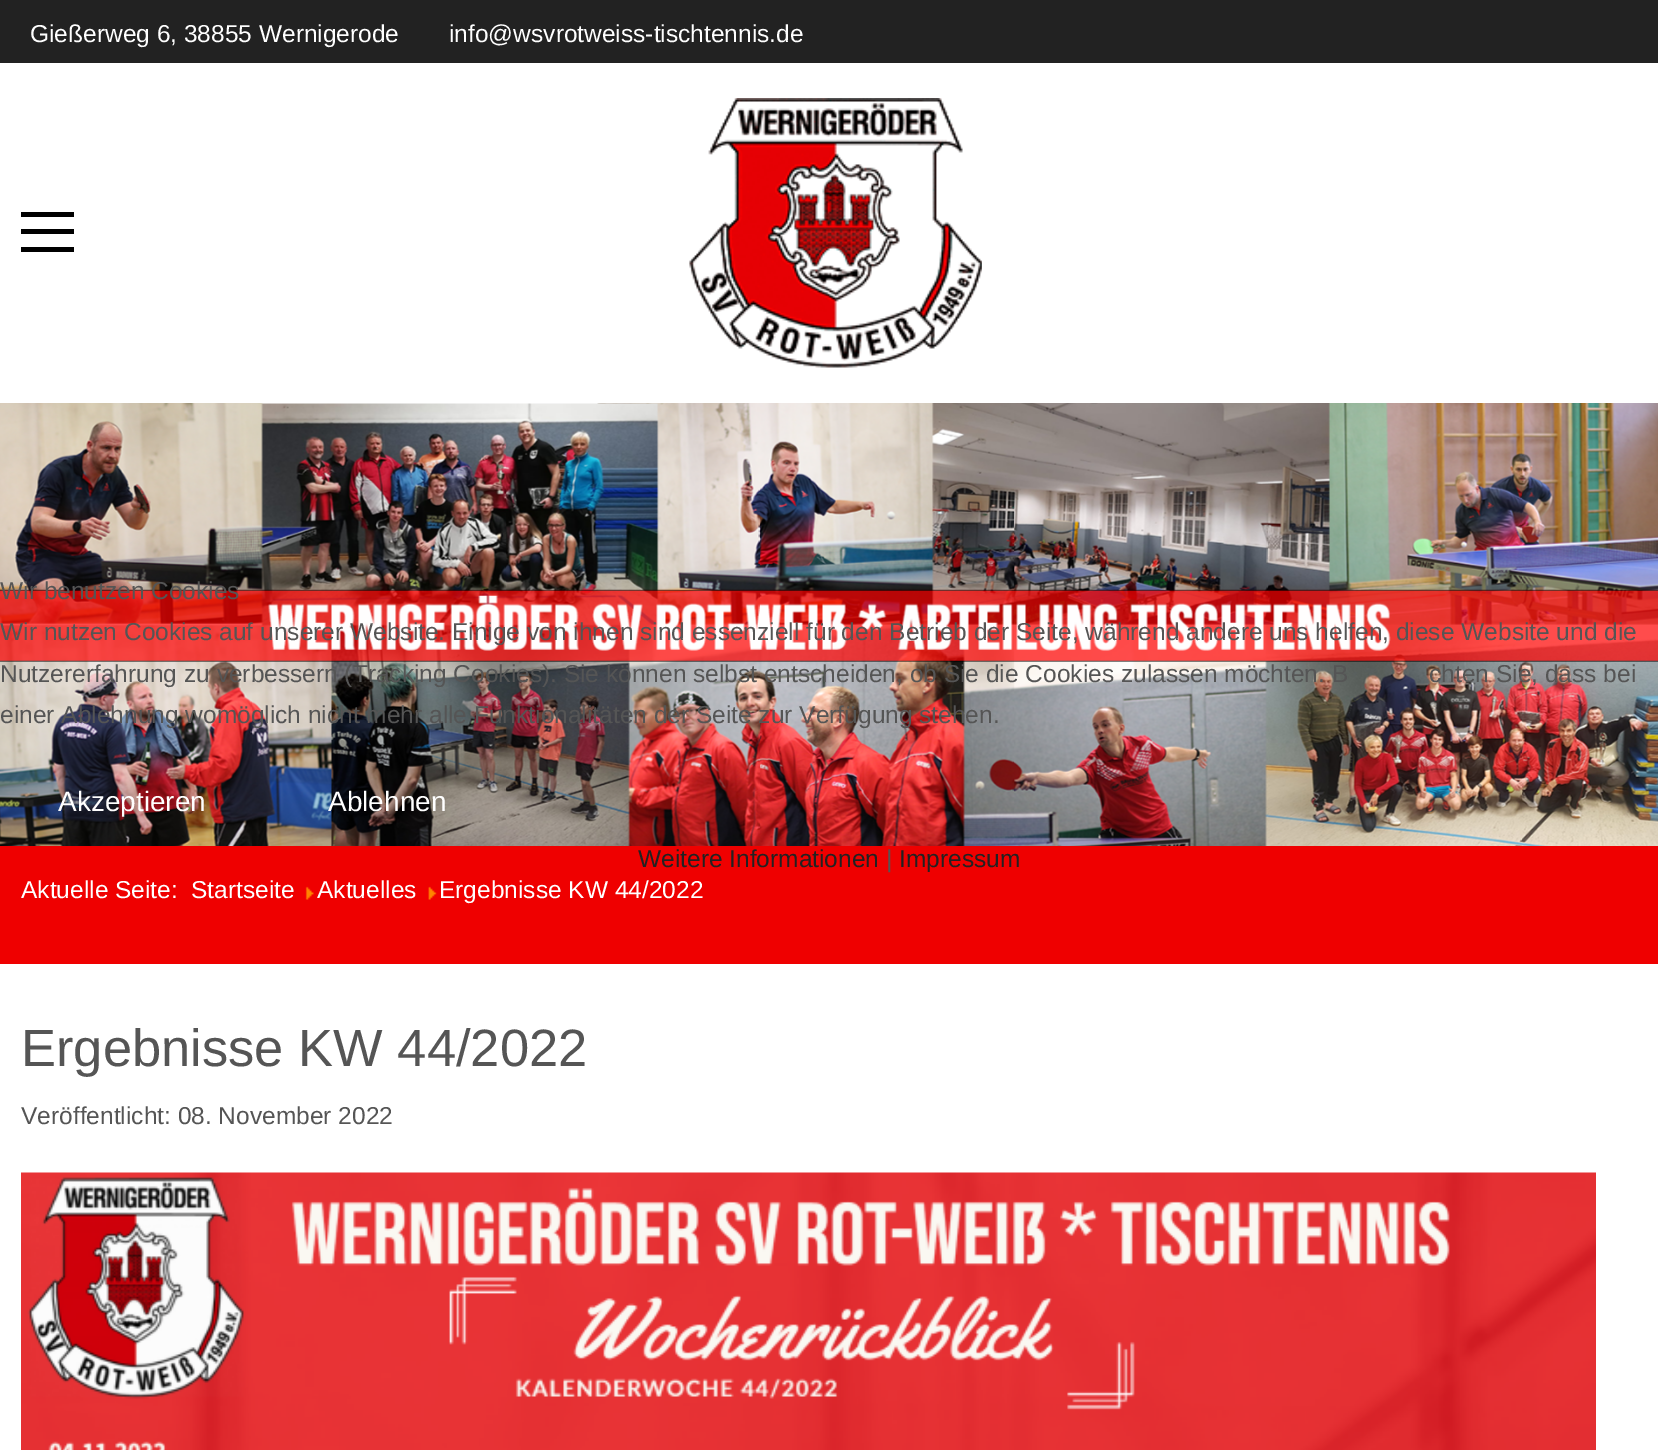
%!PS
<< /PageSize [1658 1450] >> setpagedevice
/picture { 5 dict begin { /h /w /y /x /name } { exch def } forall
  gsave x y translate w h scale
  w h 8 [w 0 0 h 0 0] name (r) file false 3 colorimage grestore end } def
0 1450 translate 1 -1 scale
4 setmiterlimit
1 setgray
0 0 1658 1450 rectfill
0.133 setgray
0 0 1658 63 rectfill
/LiberationSans-Regular [24.5 0 0 -24.5 0 0] selectfont
1 setgray
30 42 moveto (Gießerweg 6, 38855 Wernigerode) show
449 42 moveto (info@wsvrotweiss-tischtennis.de) show
0 setgray
21 229 53 5 rectfill
21 212 53 5 rectfill
21 247 53 5 rectfill
(img1.rgb) 689 98 293 270 picture
(img2.rgb) 0 403 1658 443 picture
0.937 0 0 setrgbcolor
0 846 1658 118 rectfill
1 setgray
21 898 moveto (Aktuelle Seite:) show
191 898 moveto (Startseite) show
(img3.rgb) 305 886 9 14 picture
317 898 moveto (Aktuelles) show
(img4.rgb) 428 886 9 14 picture
439 898 moveto (Ergebnisse KW 44/2022) show
/LiberationSans-Regular [52.5 0 0 -52.5 0 0] selectfont
0.333 setgray
21 1066 moveto (Ergebnisse KW 44/2022) show
/LiberationSans-Regular [24.5 0 0 -24.5 0 0] selectfont
21 1124 moveto (Veröffentlicht: 08. November 2022) show
(img5.rgb) 21 1172 1575 278 picture
0 599 moveto (Wir benutzen Cookies) show
0 640 moveto (Wir nutzen Cookies auf unserer Website. Einige von ihnen sind essenziell für den Betrieb der Seite, während andere uns helfen, diese Website und die) show
0 682 moveto (Nutzererfahrung zu verbessern \(Tracking Cookies\). Sie können selbst entscheiden, ob Sie die Cookies zulassen möchten. B) show
1429 682 moveto (chten Sie, dass bei) show
0 723 moveto (einer Ablehnung womöglich nicht mehr alle Funktionalitäten der Seite zur Verfügung stehen.) show
/LiberationSans-Regular [28 0 0 -28 0 0] selectfont
1 setgray
58 811 moveto (Akzeptieren) show
328 811 moveto (Ablehnen) show
/LiberationSans-Regular [24.5 0 0 -24.5 0 0] selectfont
0.133 setgray
638 867 moveto (Weitere Informationen) show
0.333 setgray
886 867 moveto (|) show
0.133 setgray
899 867 moveto (Impressum) show
showpage
